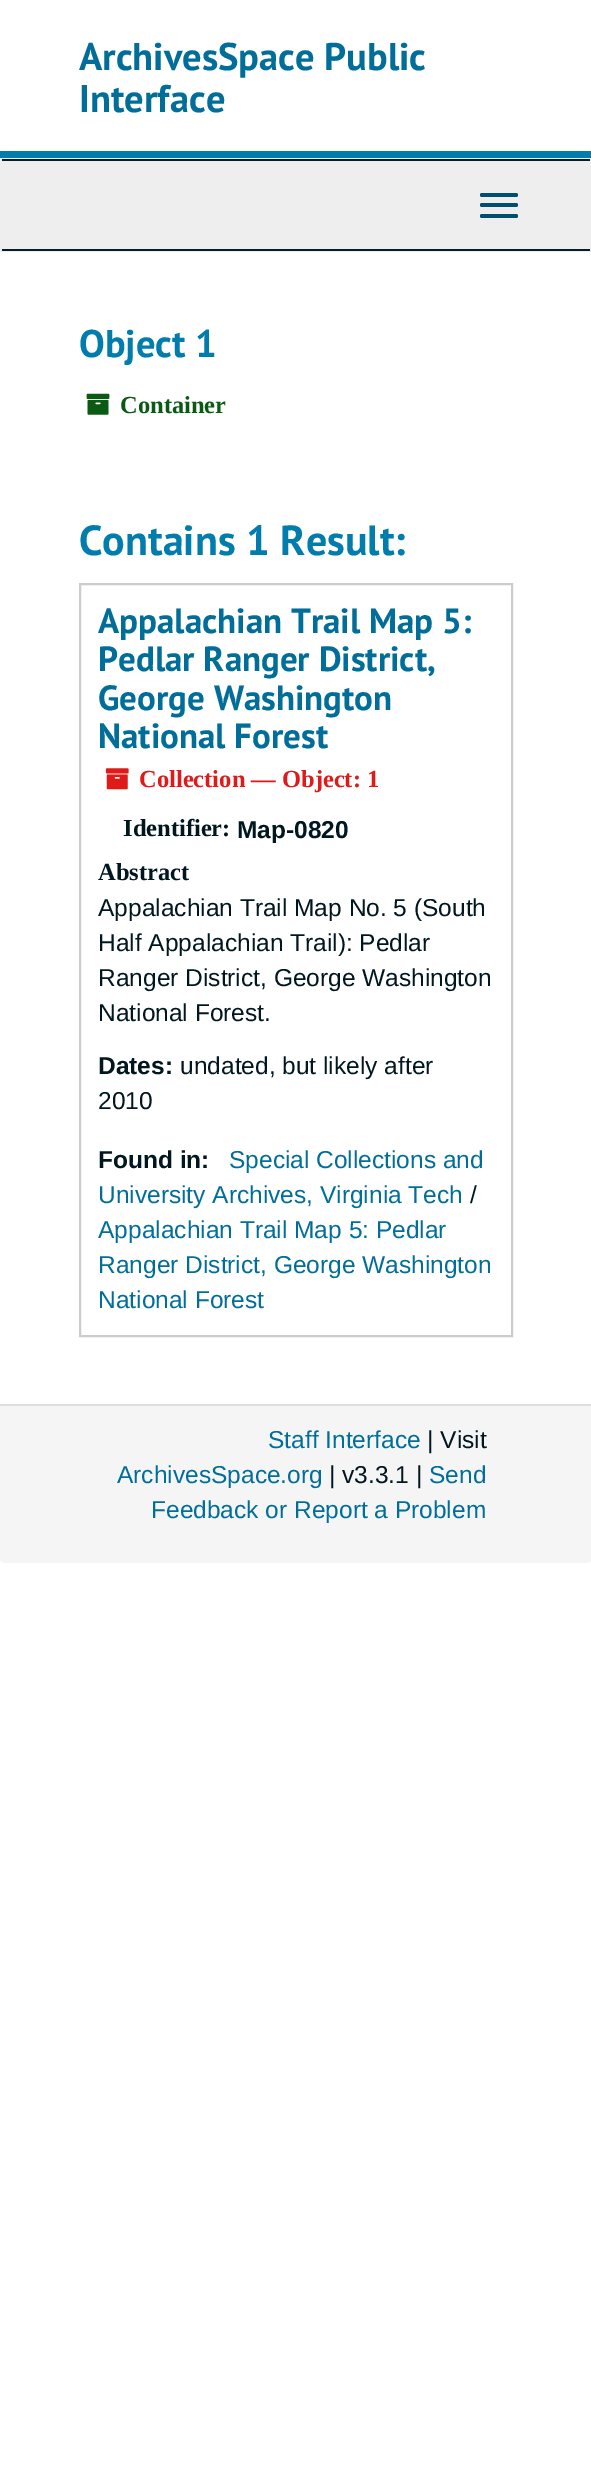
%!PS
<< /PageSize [591 2474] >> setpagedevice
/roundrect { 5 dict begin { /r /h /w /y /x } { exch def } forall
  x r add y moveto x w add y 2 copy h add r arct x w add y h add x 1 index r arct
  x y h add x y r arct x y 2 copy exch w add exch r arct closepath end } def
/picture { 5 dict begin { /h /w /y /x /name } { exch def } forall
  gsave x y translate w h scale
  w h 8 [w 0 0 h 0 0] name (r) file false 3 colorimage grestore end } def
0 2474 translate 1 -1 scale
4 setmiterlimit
1 setgray
0 0 591 2474 rectfill
0 0.486 0.678 setrgbcolor
0 151 591 7 rectfill
/PTSans-Bold [38.5 0 0 -38.5 0 0] selectfont
0 0.431 0.6 setrgbcolor
79 70 moveto (ArchivesSpace Public) show
79 112 moveto (Interface) show
0.933 setgray
0 158 591 94 rectfill
0.016 0.11 0.184 setrgbcolor
2 159 588 2 rectfill
2 249 588 2 rectfill
0 0.31 0.435 setrgbcolor
480 193 38 4 2 roundrect fill
480 203 38 4 2 roundrect fill
480 214 38 4 2 roundrect fill
0 0.486 0.678 setrgbcolor
79 357 moveto (Object 1) show
(img1.rgb) 86 393 24 22 picture
/LiberationSerif-Bold [24.5 0 0 -24.5 0 0] selectfont
0.043 0.353 0.078 setrgbcolor
120 413 moveto (Container) show
/PTSans-Bold [42 0 0 -42 0 0] selectfont
0 0.486 0.678 setrgbcolor
79 555 moveto (Contains 1 Result:) show
0.8 setgray
2 setlinewidth
80 584 432 752 rectstroke
/PTSans-Bold [35 0 0 -35 0 0] selectfont
0 0.431 0.6 setrgbcolor
98 633 moveto (Appalachian Trail Map 5:) show
98 671 moveto (Pedlar Ranger District,) show
98 710 moveto (George Washington) show
98 748 moveto (National Forest) show
(img2.rgb) 105 768 24 22 picture
/LiberationSerif-Bold [24.5 0 0 -24.5 0 0] selectfont
0.878 0.098 0.098 setrgbcolor
139 787 moveto (Collection — Object: 1) show
0 0.09 0.122 setrgbcolor
123 836 moveto (Identifier:) show
/LiberationSans-Bold [24.5 0 0 -24.5 0 0] selectfont
237 838 moveto (Map-0820) show
/LiberationSerif-Bold [24.5 0 0 -24.5 0 0] selectfont
98 880 moveto (Abstract) show
/LiberationSans-Regular [24.5 0 0 -24.5 0 0] selectfont
98 916 moveto (Appalachian Trail Map No. 5 \(South) show
98 951 moveto (Half Appalachian Trail\): Pedlar) show
98 986 moveto (Ranger District, George Washington) show
98 1021 moveto (National Forest.) show
/LiberationSans-Bold [24.5 0 0 -24.5 0 0] selectfont
98 1074 moveto (Dates:) show
/LiberationSans-Regular [24.5 0 0 -24.5 0 0] selectfont
180 1074 moveto (undated, but likely after) show
98 1109 moveto (2010) show
/LiberationSans-Bold [24.5 0 0 -24.5 0 0] selectfont
98 1168 moveto (Found in:) show
/LiberationSans-Regular [24.5 0 0 -24.5 0 0] selectfont
0 0.431 0.6 setrgbcolor
229 1168 moveto (Special Collections and) show
98 1203 moveto (University Archives, Virginia Tech) show
0 0.09 0.122 setrgbcolor
470 1203 moveto (/) show
0 0.431 0.6 setrgbcolor
98 1238 moveto (Appalachian Trail Map 5: Pedlar) show
98 1273 moveto (Ranger District, George Washington) show
98 1308 moveto (National Forest) show
0.961 setgray
newpath 0 1404 moveto 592 1404 lineto 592 1558 lineto 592 1561 590 1563 587 1563 curveto 5 1563 lineto 2 1563 0 1561 0 1558 curveto closepath fill
0.867 setgray
0 1404 591 2 rectfill
0 0.431 0.6 setrgbcolor
268 1448 moveto (Staff Interface) show
0 0.09 0.122 setrgbcolor
427 1448 moveto (| Visit) show
0 0.431 0.6 setrgbcolor
117 1483 moveto (ArchivesSpace.org) show
0 0.09 0.122 setrgbcolor
329 1483 moveto (| v3.3.1 |) show
0 0.431 0.6 setrgbcolor
429 1483 moveto (Send) show
151 1518 moveto (Feedback or Report a Problem) show
showpage
